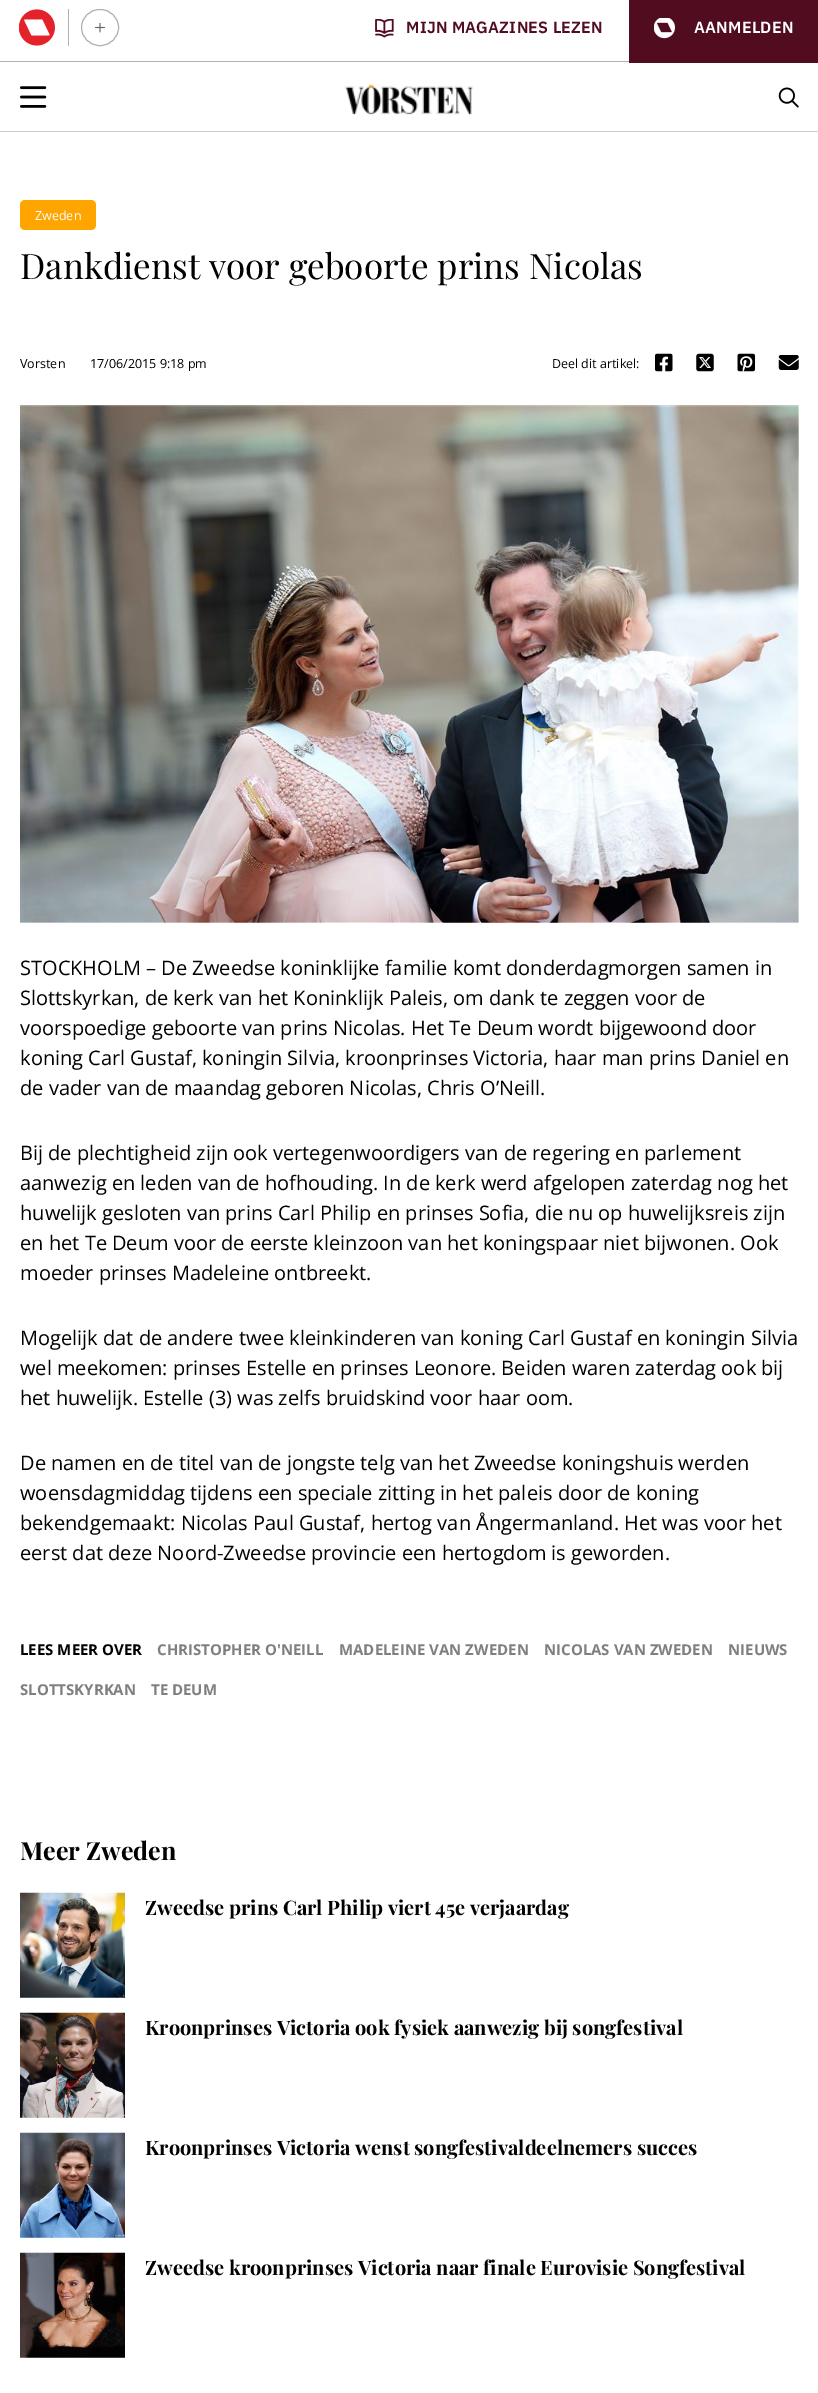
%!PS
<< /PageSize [818 2393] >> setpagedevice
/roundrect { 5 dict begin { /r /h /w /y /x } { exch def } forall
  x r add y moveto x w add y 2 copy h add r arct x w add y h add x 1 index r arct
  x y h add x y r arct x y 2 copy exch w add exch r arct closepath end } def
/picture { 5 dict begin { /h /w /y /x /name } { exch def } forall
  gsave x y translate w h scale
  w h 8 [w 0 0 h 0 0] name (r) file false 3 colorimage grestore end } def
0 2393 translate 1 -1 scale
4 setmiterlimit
1 setgray
0 0 818 2393 rectfill
0.698 setgray
0 61 629 1 rectfill
0.698 0.694 0.694 setrgbcolor
68 9 1 37 rectfill
(img1.rgb) 19 9 36 37 picture
81.5 9.5 37 36 18 roundrect stroke
(img2.rgb) 95 23 10 10 picture
(img3.rgb) 375 19 19 19 picture
/IBMPlexSans-SemiBold [16.25 0 0 -16.25 0 0] selectfont
0.322 0.047 0.125 setrgbcolor
406 33 moveto 0.25 0 (MIJN MAGAZINES LEZEN) ashow
629 0 189 63 rectfill
(img4.rgb) 654 18 21 21 picture
1 setgray
694 33 moveto 0.25 0 (AANMELDEN) ashow
0.8 setgray
0 131 818 1 rectfill
(img5.rgb) 20 86 27 22 picture
(img6.rgb) 344 84 129 31 picture
(img7.rgb) 778 87 21 21 picture
1 0.647 0 setrgbcolor
20 200 76 30 5 roundrect fill
/OpenSans-Regular [12.5 0 0 -12.5 0 0] selectfont
1 setgray
35 220 moveto (Zweden) show
/PlayfairDisplay-Regular [35 0 0 -35 0 0] selectfont
0 setgray
20 279 moveto (Dankdienst voor geboorte prins Nicolas) show
/OpenSans-Regular [12.5 0 0 -12.5 0 0] selectfont
20 368 moveto (Vorsten) show
90 368 moveto (17/06/2015 9:18 pm) show
552 368 moveto (Deel dit artikel:) show
(img8.rgb) 655 353 18 19 picture
(img9.rgb) 696 353 18 19 picture
(img10.rgb) 737 353 18 19 picture
(img11.rgb) 778 355 21 15 picture
(img12.rgb) 20 405 779 518 picture
/OpenSans-Regular [20 0 0 -20 0 0] selectfont
20 975 moveto (STOCKHOLM – De Zweedse koninklijke familie komt donderdagmorgen samen in) show
20 1005 moveto (Slottskyrkan, de kerk van het Koninklijk Paleis, om dank te zeggen voor de) show
20 1035 moveto (voorspoedige geboorte van prins Nicolas. Het Te Deum wordt bijgewoond door) show
20 1065 moveto (koning Carl Gustaf, koningin Silvia, kroonprinses Victoria, haar man prins Daniel en) show
20 1095 moveto (de vader van de maandag geboren Nicolas, Chris O’Neill.) show
20 1160 moveto (Bij de plechtigheid zijn ook vertegenwoordigers van de regering en parlement) show
20 1190 moveto (aanwezig en leden van de hofhouding. In de kerk werd afgelopen zaterdag nog het) show
20 1220 moveto (huwelijk gesloten van prins Carl Philip en prinses Sofia, die nu op huwelijksreis zijn) show
20 1250 moveto (en het Te Deum voor de eerste kleinzoon van het koningspaar niet bijwonen. Ook) show
20 1280 moveto (moeder prinses Madeleine ontbreekt.) show
20 1345 moveto (Mogelijk dat de andere twee kleinkinderen van koning Carl Gustaf en koningin Silvia) show
20 1375 moveto (wel meekomen: prinses Estelle en prinses Leonore. Beiden waren zaterdag ook bij) show
20 1405 moveto (het huwelijk. Estelle \(3\) was zelfs bruidskind voor haar oom.) show
20 1470 moveto (De namen en de titel van de jongste telg van het Zweedse koningshuis werden) show
20 1500 moveto (woensdagmiddag tijdens een speciale zitting in het paleis door de koning) show
20 1530 moveto (bekendgemaakt: Nicolas Paul Gustaf, hertog van Ångermanland. Het was voor het) show
20 1560 moveto (eerst dat deze Noord-Zweedse provincie een hertogdom is geworden.) show
/OpenSans-Bold [15 0 0 -15 0 0] selectfont
20 1655 moveto (LEES MEER OVER) show
0.498 setgray
157 1655 moveto (CHRISTOPHER O'NEILL) show
339 1655 moveto (MADELEINE VAN ZWEDEN) show
544 1655 moveto (NICOLAS VAN ZWEDEN) show
728 1655 moveto (NIEUWS) show
20 1695 moveto (SLOTTSKYRKAN) show
151 1695 moveto (TE DEUM) show
/PlayfairDisplay-Bold [25 0 0 -25 0 0] selectfont
0 setgray
20 1860 moveto (Meer Zweden) show
(img13.rgb) 20 1892 105 106 picture
/PlayfairDisplay-Bold [20 0 0 -20 0 0] selectfont
145 1915 moveto (Zweedse prins Carl Philip viert 45e verjaardag) show
(img14.rgb) 20 2012 105 106 picture
145 2035 moveto (Kroonprinses Victoria ook fysiek aanwezig bij songfestival) show
(img15.rgb) 20 2132 105 106 picture
145 2155 moveto (Kroonprinses Victoria wenst songfestivaldeelnemers succes) show
(img16.rgb) 20 2252 105 106 picture
145 2275 moveto (Zweedse kroonprinses Victoria naar finale Eurovisie Songfestival) show
showpage
